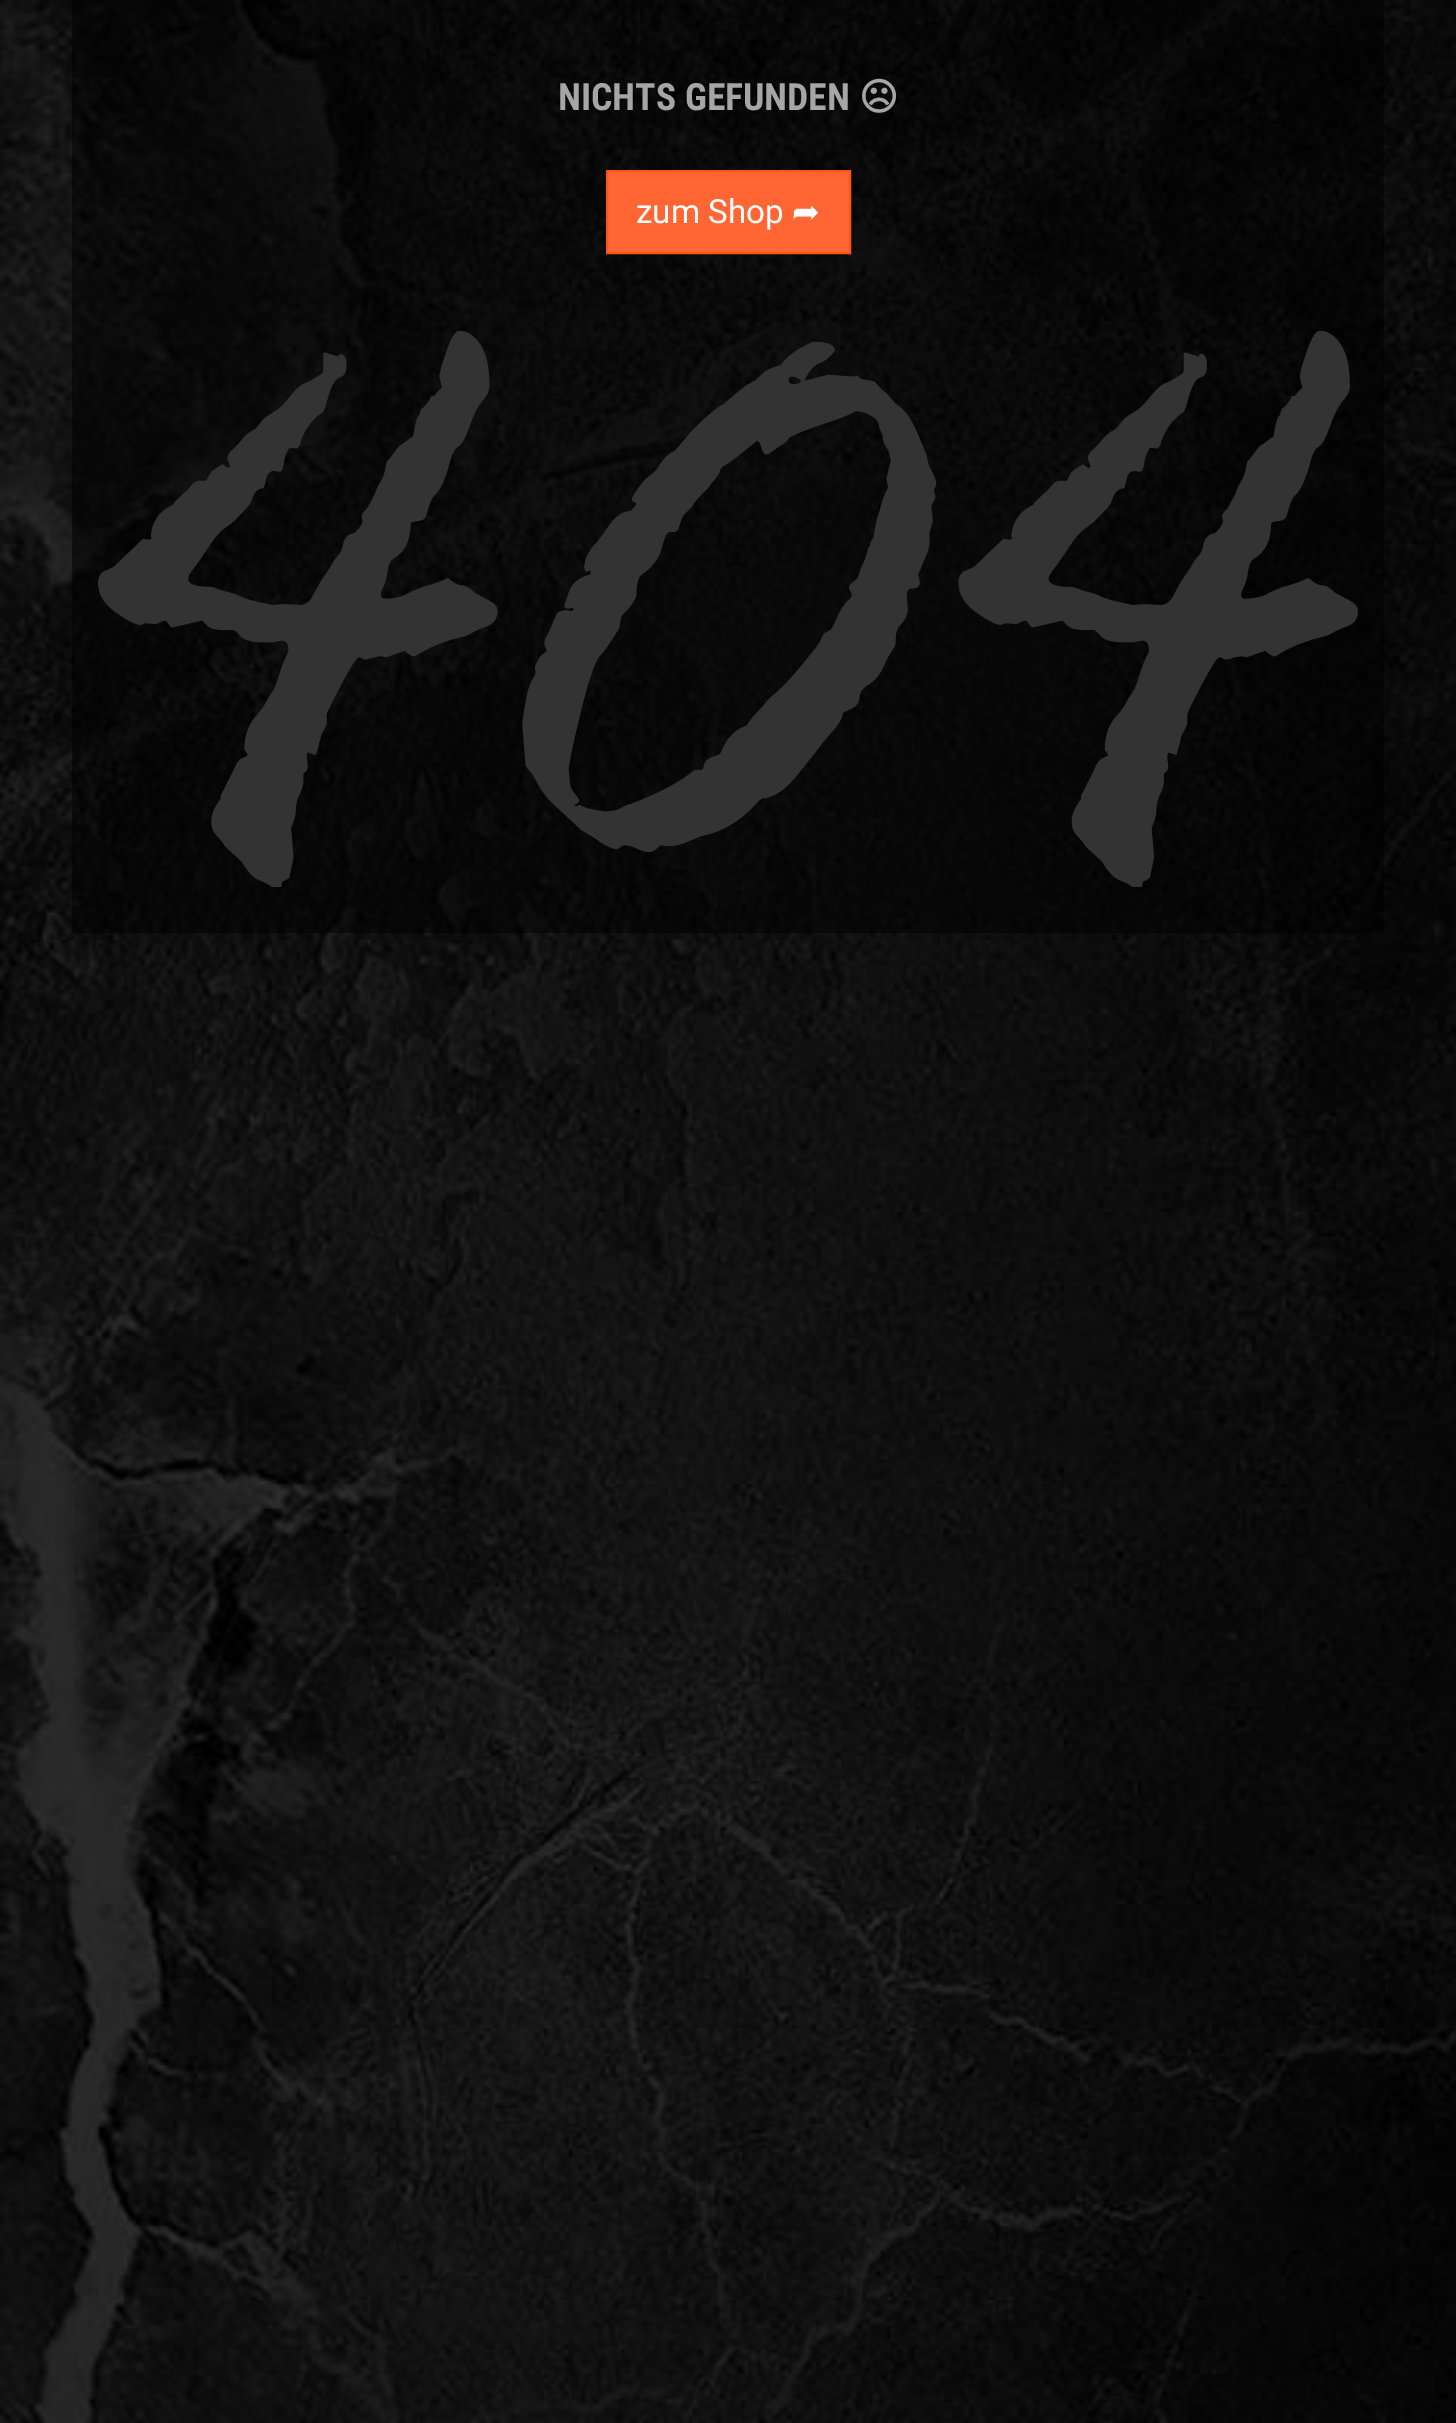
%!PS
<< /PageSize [1456 2423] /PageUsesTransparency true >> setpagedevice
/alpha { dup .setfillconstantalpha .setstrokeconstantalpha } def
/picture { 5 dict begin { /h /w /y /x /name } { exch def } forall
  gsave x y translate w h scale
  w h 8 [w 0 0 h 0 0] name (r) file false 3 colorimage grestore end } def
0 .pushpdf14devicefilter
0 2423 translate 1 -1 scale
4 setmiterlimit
1 setgray
0 0 1456 2423 rectfill
(img1.rgb) 0 0 1456 2423 picture
0.5 alpha
0 setgray
72 0 1312 933 rectfill
/RobotoCondensed-Bold [37.5 0 0 -37.5 0 0] selectfont
1 alpha
0.651 setgray
558 110 moveto (NICHTS GEFUNDEN) show
/DejaVuSans-Bold [37.5 0 0 -37.5 0 0] selectfont
859 110 moveto (☹) show
1 0.4 0.2 setrgbcolor
newpath 607 171 moveto 850 171 lineto 850 253 lineto 607 253 lineto closepath gsave fill grestore
1 0.325 0.102 setrgbcolor
2 setlinewidth
stroke
/Roboto-Regular [33.25 0 0 -33.25 0 0] selectfont
1 setgray
636 223 moveto (zum Shop) show
/DejaVuSans-Regular [33.25 0 0 -33.25 0 0] selectfont
792 223 moveto (➦) show
(img2.rgb) 98 331 1260 556 picture
.poppdf14devicefilter showpage
